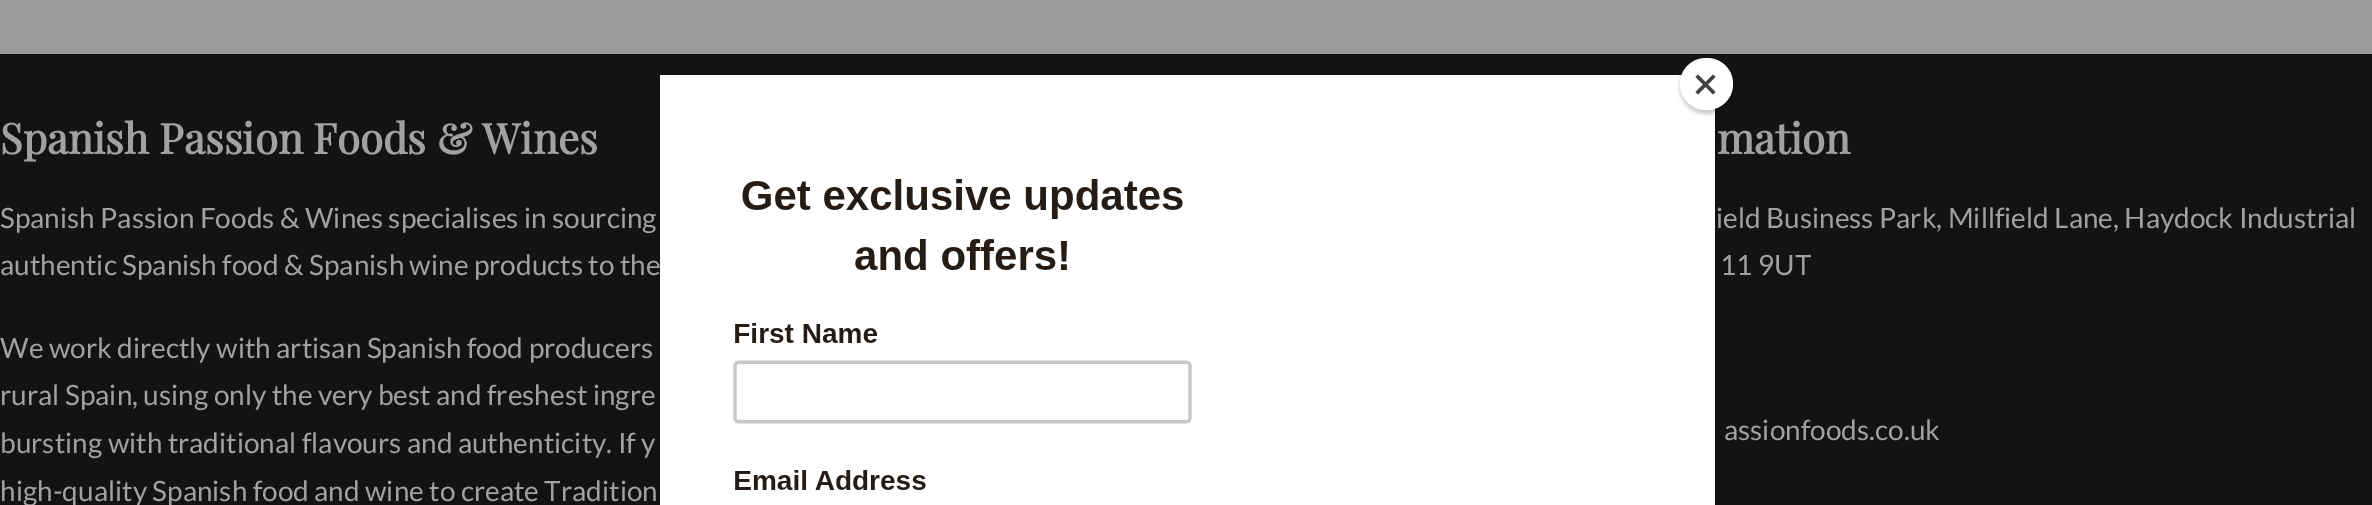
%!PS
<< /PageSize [2372 505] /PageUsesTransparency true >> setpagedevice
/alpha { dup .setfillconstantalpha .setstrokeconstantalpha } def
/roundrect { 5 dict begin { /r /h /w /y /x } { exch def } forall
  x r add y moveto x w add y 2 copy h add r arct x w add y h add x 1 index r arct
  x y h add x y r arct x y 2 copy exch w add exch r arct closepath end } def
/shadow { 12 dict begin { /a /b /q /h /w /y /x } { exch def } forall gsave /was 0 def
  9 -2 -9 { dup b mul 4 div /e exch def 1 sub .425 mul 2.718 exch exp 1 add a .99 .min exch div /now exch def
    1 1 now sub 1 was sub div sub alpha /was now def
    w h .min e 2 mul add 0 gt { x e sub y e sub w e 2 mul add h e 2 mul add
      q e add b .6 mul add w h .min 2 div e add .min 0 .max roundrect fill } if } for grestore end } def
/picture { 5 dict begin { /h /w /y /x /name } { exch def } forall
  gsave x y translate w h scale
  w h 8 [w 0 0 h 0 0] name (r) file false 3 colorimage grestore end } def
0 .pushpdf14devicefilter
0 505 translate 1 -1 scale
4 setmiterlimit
0.612 setgray
0 0 2372 505 rectfill
0.075 setgray
0 54 2372 451 rectfill
0 setgray
660 79 1055 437 0 3.5 0.2 shadow
(img1.rgb) 660 75 1055 430 picture
1680 61 53 53 26.5 2 0.2 shadow
1 setgray
1680 58 53 52 26 roundrect fill
0.255 setgray
newpath 1713 74.5 moveto 1715.5 77 lineto 1698 94.5 lineto 1695.5 92 lineto closepath fill
newpath 1695.5 77 moveto 1698 74.5 lineto 1715.5 92 lineto 1713 94.5 lineto closepath fill
/PlayfairDisplay-Bold [42 0 0 -42 0 0] selectfont
0.631 setgray
0 154 moveto (Spanish Passion Foods & Wines) show
/Lato-Regular [28 0 0 -28 0 0] selectfont
0 228 moveto (Spanish Passion Foods & Wines specialises in sourcing) show
0 275 moveto (authentic Spanish food & Spanish wine products to the) show
0 358 moveto (We work directly with artisan Spanish food producers) show
0 405 moveto (rural Spain, using only the very best and freshest ingre) show
0 453 moveto (bursting with traditional flavours and authenticity. If y) show
0 501 moveto (high-quality Spanish food and wine to create Tradition) show
/PlayfairDisplay-Bold [42 0 0 -42 0 0] selectfont
1717 154 moveto (mation) show
/Lato-Regular [28 0 0 -28 0 0] selectfont
1716 228 moveto (ield Business Park, Millfield Lane, Haydock Industrial) show
1720 275 moveto (11 9UT) show
1724 440 moveto (assionfoods.co.uk) show
.poppdf14devicefilter showpage
